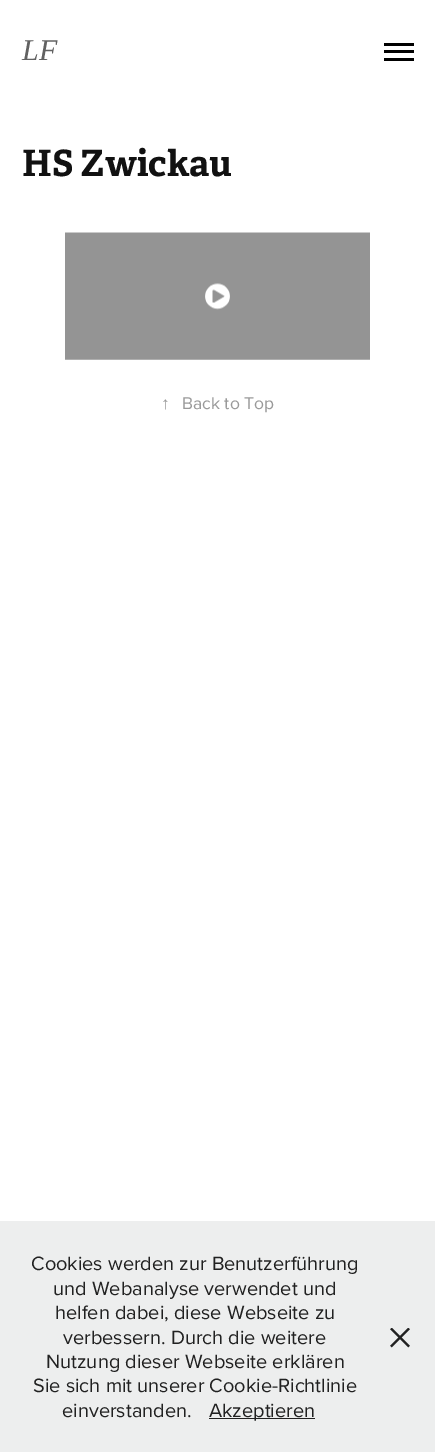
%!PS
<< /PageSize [435 1452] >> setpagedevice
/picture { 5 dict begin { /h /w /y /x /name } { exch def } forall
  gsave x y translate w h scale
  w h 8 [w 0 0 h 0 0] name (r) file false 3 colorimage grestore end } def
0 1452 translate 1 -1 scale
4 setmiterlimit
1 setgray
0 0 435 1452 rectfill
/LiberationSerif-Italic [30 0 0 -30 0 0] selectfont
0.38 setgray
22 60 moveto (LF) show
0 setgray
384 43 30 3 rectfill
384 50 30 3 rectfill
384 58 30 3 rectfill
/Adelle-Bold [36.25 0 0 -36.25 0 0] selectfont
0.067 setgray
22 176 moveto (HS Zwickau) show
(img1.rgb) 65 232 305 128 picture
/LiberationSerif-Regular [17.5 0 0 -17.5 0 0] selectfont
0.6 setgray
161 409 moveto (↑) show
/ProximaNova-Regular [17.5 0 0 -17.5 0 0] selectfont
182 409 moveto (Back to Top) show
0.929 0.933 0.933 setrgbcolor
0 1221 435 231 rectfill
/ProximaNova-Regular [20 0 0 -20 0 0] selectfont
0.129 setgray
31 1270 moveto (Cookies werden zur Benutzerführung) show
53 1295 moveto (und Webanalyse verwendet und) show
55 1319 moveto (helfen dabei, diese Webseite zu) show
63 1344 moveto (verbessern. Durch die weitere) show
46 1368 moveto (Nutzung dieser Webseite erklären) show
33 1392 moveto (Sie sich mit unserer Cookie-Richtlinie) show
62 1417 moveto (einverstanden.) show
209 1418 106 1 rectfill
209 1417 moveto (Akzeptieren) show
(img2.rgb) 390 1328 20 20 picture
showpage
